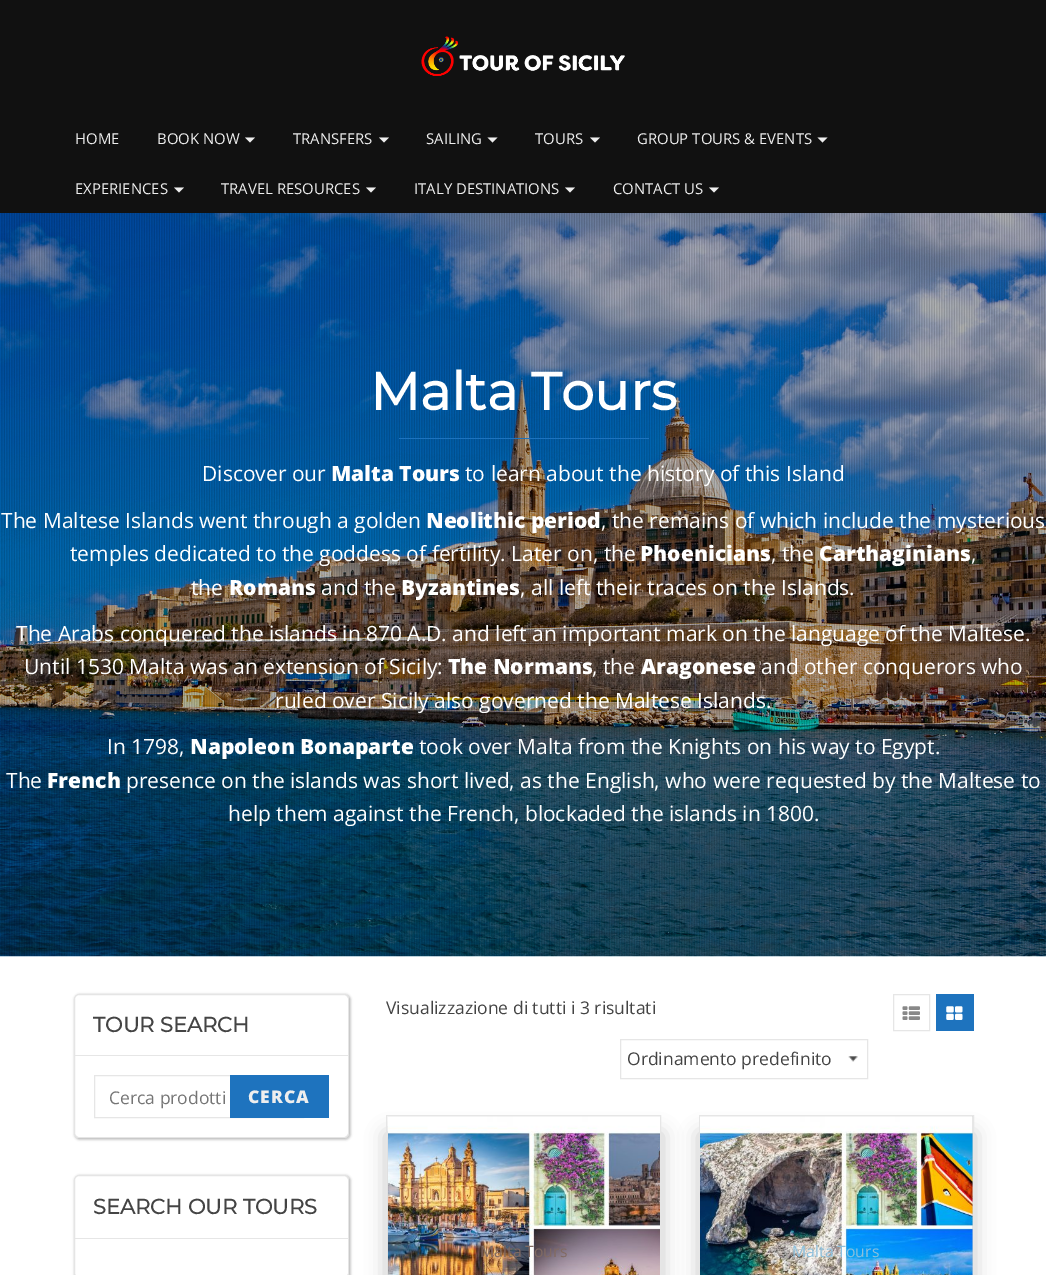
%!PS
<< /PageSize [1046 1275] /PageUsesTransparency true >> setpagedevice
/alpha { dup .setfillconstantalpha .setstrokeconstantalpha } def
/roundrect { 5 dict begin { /r /h /w /y /x } { exch def } forall
  x r add y moveto x w add y 2 copy h add r arct x w add y h add x 1 index r arct
  x y h add x y r arct x y 2 copy exch w add exch r arct closepath end } def
/shadow { 12 dict begin { /a /b /q /h /w /y /x } { exch def } forall gsave /was 0 def
  9 -2 -9 { dup b mul 4 div /e exch def 1 sub .425 mul 2.718 exch exp 1 add a .99 .min exch div /now exch def
    1 1 now sub 1 was sub div sub alpha /was now def
    w h .min e 2 mul add 0 gt { x e sub y e sub w e 2 mul add h e 2 mul add
      q e add b .6 mul add w h .min 2 div e add .min 0 .max roundrect fill } if } for grestore end } def
/picture { 5 dict begin { /h /w /y /x /name } { exch def } forall
  gsave x y translate w h scale
  w h 8 [w 0 0 h 0 0] name (r) file false 3 colorimage grestore end } def
0 .pushpdf14devicefilter
0 1275 translate 1 -1 scale
4 setmiterlimit
1 setgray
0 0 1046 1275 rectfill
0.067 setgray
0 0 1046 213 rectfill
(img1.rgb) 421 36 204 40 picture
/OpenSans-Regular [14.9 0 0 -14.9 0 0] selectfont
0.933 setgray
75 144 moveto (HOME) show
157 144 moveto (BOOK NOW) show
newpath 245 137.5 moveto 255 137.5 lineto 250 142.5 lineto closepath fill
293 144 moveto (TRANSFERS) show
newpath 379 137.5 moveto 389 137.5 lineto 384 142.5 lineto closepath fill
426 144 moveto (SAILING) show
newpath 487.5 137.5 moveto 497.5 137.5 lineto 492.5 142.5 lineto closepath fill
535 144 moveto (TOURS) show
newpath 590 137.5 moveto 600 137.5 lineto 595 142.5 lineto closepath fill
637 144 moveto (GROUP TOURS & EVENTS) show
newpath 817.5 137.5 moveto 827.5 137.5 lineto 822.5 142.5 lineto closepath fill
75 194 moveto (EXPERIENCES) show
newpath 174 187.5 moveto 184 187.5 lineto 179 192.5 lineto closepath fill
221 194 moveto (TRAVEL RESOURCES) show
newpath 366 187.5 moveto 376 187.5 lineto 371 192.5 lineto closepath fill
414 194 moveto (ITALY DESTINATIONS) show
newpath 565 187.5 moveto 575 187.5 lineto 570 192.5 lineto closepath fill
613 194 moveto (CONTACT US) show
newpath 709 187.5 moveto 719 187.5 lineto 714 192.5 lineto closepath fill
(img2.rgb) 0 213 1046 744 picture
(img3.rgb) 0 213 1046 744 picture
/Montserrat-Bold [52.5 0 0 -52.5 0 0] selectfont
1 setgray
370 410 moveto (Malta Tours) show
0.118 0.451 0.745 setrgbcolor
399 438 250 1 rectfill
/OpenSans-Regular [21 0 0 -21 0 0] selectfont
1 setgray
202 481 moveto (Discover our) show
/OpenSans-ExtraBold [21 0 0 -21 0 0] selectfont
331 481 moveto (Malta Tours) show
/OpenSans-Regular [21 0 0 -21 0 0] selectfont
465 481 moveto (to learn about the history of this Island) show
1 528 moveto (The Maltese Islands went through a golden) show
/OpenSans-ExtraBold [21 0 0 -21 0 0] selectfont
426 528 moveto (Neolithic period) show
/OpenSans-Regular [21 0 0 -21 0 0] selectfont
601 528 moveto (, the remains of which include the mysterious) show
70 561 moveto (temples dedicated to the goddess of fertility. Later on, the) show
/OpenSans-ExtraBold [21 0 0 -21 0 0] selectfont
640 561 moveto (Phoenicians) show
/OpenSans-Regular [21 0 0 -21 0 0] selectfont
771 561 moveto (, the) show
/OpenSans-ExtraBold [21 0 0 -21 0 0] selectfont
819 561 moveto (Carthaginians) show
/OpenSans-Regular [21 0 0 -21 0 0] selectfont
971 561 moveto (,) show
191 595 moveto (the) show
/OpenSans-ExtraBold [21 0 0 -21 0 0] selectfont
229 595 moveto (Romans) show
/OpenSans-Regular [21 0 0 -21 0 0] selectfont
321 595 moveto (and the) show
/OpenSans-ExtraBold [21 0 0 -21 0 0] selectfont
401 595 moveto (Byzantines) show
/OpenSans-Regular [21 0 0 -21 0 0] selectfont
520 595 moveto (, all left their traces on the Islands.) show
16 641 moveto (The Arabs conquered the islands in 870 A.D. and left an important mark on the language of the Maltese.) show
24 674 moveto (Until 1530 Malta was an extension of Sicily:) show
/OpenSans-ExtraBold [21 0 0 -21 0 0] selectfont
448 674 moveto (The Normans) show
/OpenSans-Regular [21 0 0 -21 0 0] selectfont
592 674 moveto (, the) show
/OpenSans-ExtraBold [21 0 0 -21 0 0] selectfont
641 674 moveto (Aragonese) show
/OpenSans-Regular [21 0 0 -21 0 0] selectfont
761 674 moveto (and other conquerors who) show
275 708 moveto (ruled over Sicily also governed the Maltese Islands.) show
107 754 moveto (In 1798,) show
/OpenSans-ExtraBold [21 0 0 -21 0 0] selectfont
190 754 moveto (Napoleon Bonaparte) show
/OpenSans-Regular [21 0 0 -21 0 0] selectfont
419 754 moveto (took over Malta from the Knights on his way to Egypt.) show
6 788 moveto (The) show
/OpenSans-ExtraBold [21 0 0 -21 0 0] selectfont
47 788 moveto (French) show
/OpenSans-Regular [21 0 0 -21 0 0] selectfont
126 788 moveto (presence on the islands was short lived, as the English, who were requested by the Maltese to) show
228 821 moveto (help them against the French, blockaded the islands in 1800.) show
0 setgray
74 994 277 146 6 1 0.2 shadow
1 setgray
74 994 275 144 5 roundrect fill
0.1 alpha
0 setgray
74.5 994.5 274 143 4.5 roundrect stroke
1 alpha
0.902 setgray
75 1055 273 1 rectfill
/Montserrat-Bold [21 0 0 -21 0 0] selectfont
0.267 setgray
93 1032 moveto (TOUR SEARCH) show
0.902 setgray
94.5 1075.5 209 42 rectstroke
/OpenSans-Regular [17.5 0 0 -17.5 0 0] selectfont
0.459 setgray
109 1104 moveto (Cerca prodotti) show
0.118 0.451 0.745 setrgbcolor
230 1075 99 43 rectfill
/OpenSans-ExtraBold [17.5 0 0 -17.5 0 0] selectfont
0.933 setgray
248 1103 moveto 1 0 (CERCA) ashow
0 setgray
74 1175 277 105 6 1 0.2 shadow
1 setgray
74 1175 275 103 5 roundrect fill
0.1 alpha
0 setgray
74.5 1175.5 274 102 4.5 roundrect stroke
1 alpha
0.902 setgray
75 1238 273 1 rectfill
/Montserrat-Bold [21 0 0 -21 0 0] selectfont
0.267 setgray
93 1214 moveto (SEARCH OUR TOURS) show
/OpenSans-Regular [17.5 0 0 -17.5 0 0] selectfont
386 1014 moveto (Visualizzazione di tutti i 3 risultati) show
0.902 setgray
893.5 994.5 36 36 rectstroke
(img4.rgb) 902 1006 18 14 picture
0.118 0.451 0.745 setrgbcolor
936 994 38 37 rectfill
(img5.rgb) 946 1006 17 14 picture
(img6.rgb) 848 1056 10 6 picture
0.902 setgray
620.5 1039.5 247 39 rectstroke
0.267 setgray
627 1065 moveto (Ordinamento predefinito) show
0 setgray
385 1133 278 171 0 9.5 0.2 shadow
0.902 setgray
386.5 1115.5 274 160 rectstroke
(img7.rgb) 388 1116 272 159 picture
/OpenSans-Regular [15.75 0 0 -15.75 0 0] selectfont
0.506 0.416 0.384 setrgbcolor
480 1257 moveto (Malta Tours) show
0 setgray
698 1133 277 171 0 9.5 0.2 shadow
0.902 setgray
699.5 1115.5 274 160 rectstroke
0.812 setgray
700 1116 273 159 rectfill
(img8.rgb) 700 1116 273 159 picture
0.545 0.749 0.863 setrgbcolor
792 1257 moveto (Malta Tours) show
.poppdf14devicefilter showpage
